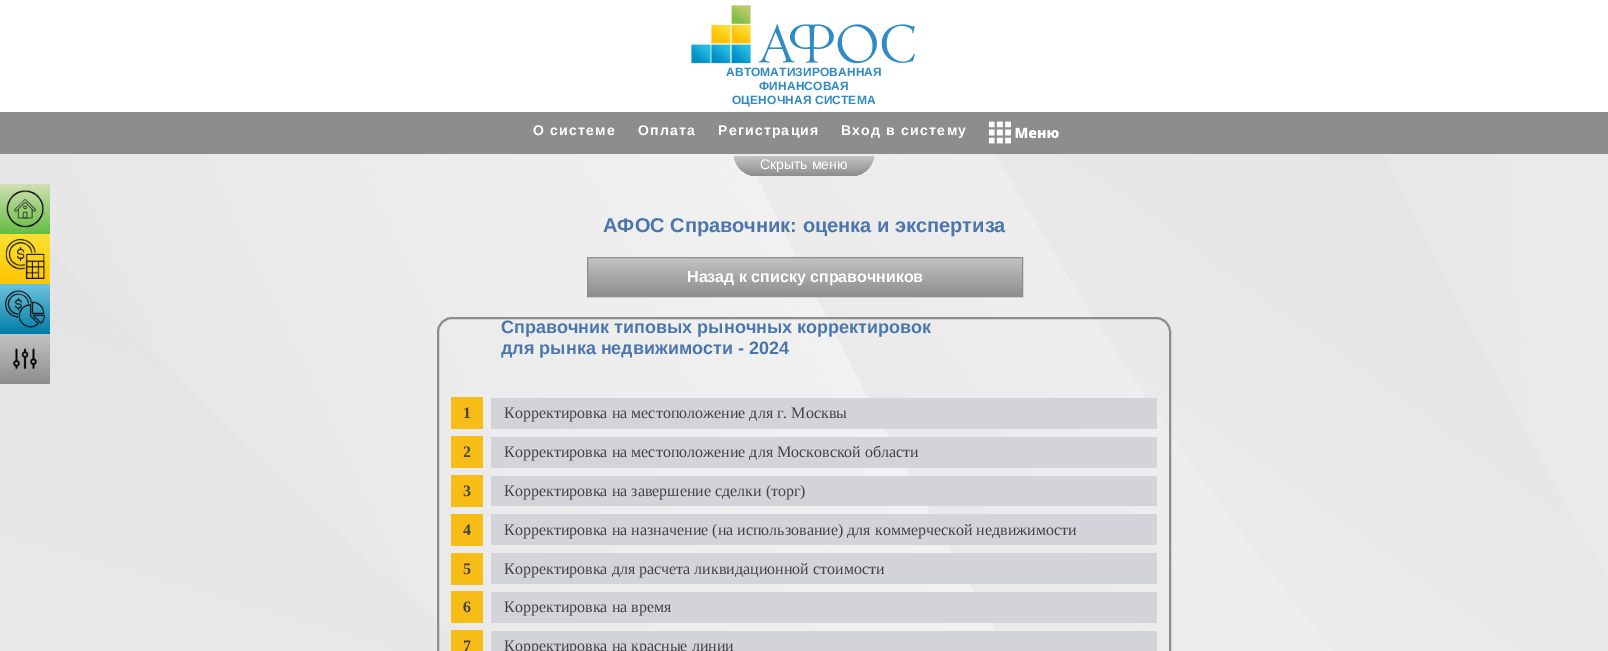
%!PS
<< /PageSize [1608 651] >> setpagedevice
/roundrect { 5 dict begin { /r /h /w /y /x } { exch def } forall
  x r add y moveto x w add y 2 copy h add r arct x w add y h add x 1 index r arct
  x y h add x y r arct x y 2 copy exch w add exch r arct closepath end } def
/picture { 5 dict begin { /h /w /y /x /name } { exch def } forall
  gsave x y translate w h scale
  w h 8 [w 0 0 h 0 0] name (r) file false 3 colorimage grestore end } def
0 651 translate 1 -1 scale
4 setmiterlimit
1 setgray
0 0 1608 651 rectfill
(img1.rgb) 691 5 224 59 picture
/LiberationSans-Bold [12 0 0 -12 0 0] selectfont
0.188 0.545 0.761 setrgbcolor
726 76 moveto 0.1 0 (АВТОМАТИЗИРОВАННАЯ) ashow
759 90 moveto 0.1 0 (ФИНАНСОВАЯ) ashow
732 104 moveto 0.1 0 (ОЦЕНОЧНАЯ СИСТЕМА) ashow
0.553 setgray
0 112 1608 42 rectfill
/LiberationSans-Bold [14 0 0 -14 0 0] selectfont
1 setgray
533 135 moveto 1.25 0 (О системе) ashow
638 135 moveto 1.25 0 (Оплата) ashow
718 135 moveto 1.25 0 (Регистрация) ashow
841 135 moveto 1.25 0 (Вход в систему) ashow
(img2.rgb) 988 121 71 23 picture
(img3.rgb) 0 154 1608 497 picture
gsave
newpath 734 154 moveto 874 154 lineto 874 166 864 176 852 176 curveto 756 176 lineto 744 176 734 166 734 154 curveto closepath clip newpath
gsave newpath 734 156 moveto 874 156 lineto 874 176 lineto 734 176 lineto closepath clip newpath
<< /ShadingType 2 /ColorSpace /DeviceRGB /Coords [804 176 804 156] /Extend [true true] /Function << /FunctionType 2 /Domain [0 1] /C0 [0.553 0.553 0.553] /C1 [0.765 0.765 0.765] /N 1 >> >> shfill grestore
grestore
0.929 setgray
734 154 16 2 rectfill
/LiberationSans-Regular [14 0 0 -14 0 0] selectfont
1 setgray
760 169 moveto (Скрыть меню) show
gsave newpath 0 184 moveto 50 184 lineto 50 234 lineto 0 234 lineto closepath clip newpath
<< /ShadingType 2 /ColorSpace /DeviceRGB /Coords [-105 234 -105 184] /Extend [true true] /Function << /FunctionType 2 /Domain [0 1] /C0 [0.388 0.741 0.255] /C1 [0.82 0.871 0.702] /N 1 >> >> shfill grestore
(img4.rgb) 6 190 38 38 picture
gsave newpath 0 234 moveto 50 234 lineto 50 284 lineto 0 284 lineto closepath clip newpath
<< /ShadingType 2 /ColorSpace /DeviceRGB /Coords [-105 284 -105 234] /Extend [true true] /Function << /FunctionType 2 /Domain [0 1] /C0 [1 0.773 0.004] /C1 [0.98 0.878 0.192] /N 1 >> >> shfill grestore
(img5.rgb) 5 239 40 40 picture
gsave newpath 0 284 moveto 50 284 lineto 50 334 lineto 0 334 lineto closepath clip newpath
<< /ShadingType 2 /ColorSpace /DeviceRGB /Coords [-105 334 -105 284] /Extend [true true] /Function << /FunctionType 2 /Domain [0 1] /C0 [0 0.49 0.651] /C1 [0.427 0.765 0.867] /N 1 >> >> shfill grestore
(img6.rgb) 5 290 40 38 picture
gsave newpath 0 334 moveto 50 334 lineto 50 384 lineto 0 384 lineto closepath clip newpath
<< /ShadingType 2 /ColorSpace /DeviceRGB /Coords [-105 384 -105 334] /Extend [true true] /Function << /FunctionType 2 /Domain [0 1] /C0 [0.553 0.553 0.553] /C1 [0.765 0.765 0.765] /N 1 >> >> shfill grestore
(img7.rgb) 13 348 24 22 picture
/LiberationSans-Bold [20 0 0 -20 0 0] selectfont
0.29 0.463 0.678 setrgbcolor
603 232 moveto (АФОС Справочник: оценка и экспертиза) show
gsave newpath 588 258 moveto 1022 258 lineto 1022 296 lineto 588 296 lineto closepath clip newpath
<< /ShadingType 2 /ColorSpace /DeviceRGB /Coords [805 296 805 258] /Extend [true true] /Function << /FunctionType 2 /Domain [0 1] /C0 [0.553 0.553 0.553] /C1 [0.765 0.765 0.765] /N 1 >> >> shfill grestore
0.553 setgray
587.5 257.5 435 39 rectstroke
/LiberationSans-Bold [16 0 0 -16 0 0] selectfont
1 setgray
687 282 moveto (Назад к списку справочников) show
0.553 setgray
2 setlinewidth
438 318 732 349 14 roundrect stroke
/LiberationSans-Bold [18 0 0 -18 0 0] selectfont
0.29 0.463 0.678 setrgbcolor
501 333 moveto (Справочник типовых рыночных корректировок) show
501 354 moveto (для рынка недвижимости - 2024) show
0.827 0.831 0.855 setrgbcolor
491 398 666 31 rectfill
0.969 0.741 0.09 setrgbcolor
451 397 32 32 rectfill
/LiberationSerif-Bold [16 0 0 -16 0 0] selectfont
0.267 setgray
463 418 moveto (1) show
/LiberationSerif-Regular [16 0 0 -16 0 0] selectfont
504 418 moveto (Корректировка на местоположение для г. Москвы) show
0.827 0.831 0.855 setrgbcolor
491 437 666 31 rectfill
0.969 0.741 0.09 setrgbcolor
451 436 32 32 rectfill
/LiberationSerif-Bold [16 0 0 -16 0 0] selectfont
0.267 setgray
463 457 moveto (2) show
/LiberationSerif-Regular [16 0 0 -16 0 0] selectfont
504 457 moveto (Корректировка на местоположение для Московской области) show
0.827 0.831 0.855 setrgbcolor
491 476 666 30 rectfill
0.969 0.741 0.09 setrgbcolor
451 475 32 32 rectfill
/LiberationSerif-Bold [16 0 0 -16 0 0] selectfont
0.267 setgray
463 496 moveto (3) show
/LiberationSerif-Regular [16 0 0 -16 0 0] selectfont
504 496 moveto (Корректировка на завершение сделки \(торг\)) show
0.827 0.831 0.855 setrgbcolor
491 514 666 31 rectfill
0.969 0.741 0.09 setrgbcolor
451 514 32 32 rectfill
/LiberationSerif-Bold [16 0 0 -16 0 0] selectfont
0.267 setgray
463 535 moveto (4) show
/LiberationSerif-Regular [16 0 0 -16 0 0] selectfont
504 535 moveto (Корректировка на назначение \(на использование\) для коммерческой недвижимости) show
0.827 0.831 0.855 setrgbcolor
491 553 666 31 rectfill
0.969 0.741 0.09 setrgbcolor
451 553 32 32 rectfill
/LiberationSerif-Bold [16 0 0 -16 0 0] selectfont
0.267 setgray
463 574 moveto (5) show
/LiberationSerif-Regular [16 0 0 -16 0 0] selectfont
504 574 moveto (Корректировка для расчета ликвидационной стоимости) show
0.827 0.831 0.855 setrgbcolor
491 592 666 31 rectfill
0.969 0.741 0.09 setrgbcolor
451 591 32 32 rectfill
/LiberationSerif-Bold [16 0 0 -16 0 0] selectfont
0.267 setgray
463 612 moveto (6) show
/LiberationSerif-Regular [16 0 0 -16 0 0] selectfont
504 612 moveto (Корректировка на время) show
0.827 0.831 0.855 setrgbcolor
491 631 666 20 rectfill
0.969 0.741 0.09 setrgbcolor
451 630 32 21 rectfill
/LiberationSerif-Bold [16 0 0 -16 0 0] selectfont
0.267 setgray
463 651 moveto (7) show
/LiberationSerif-Regular [16 0 0 -16 0 0] selectfont
504 651 moveto (Корректировка на красные линии) show
showpage
